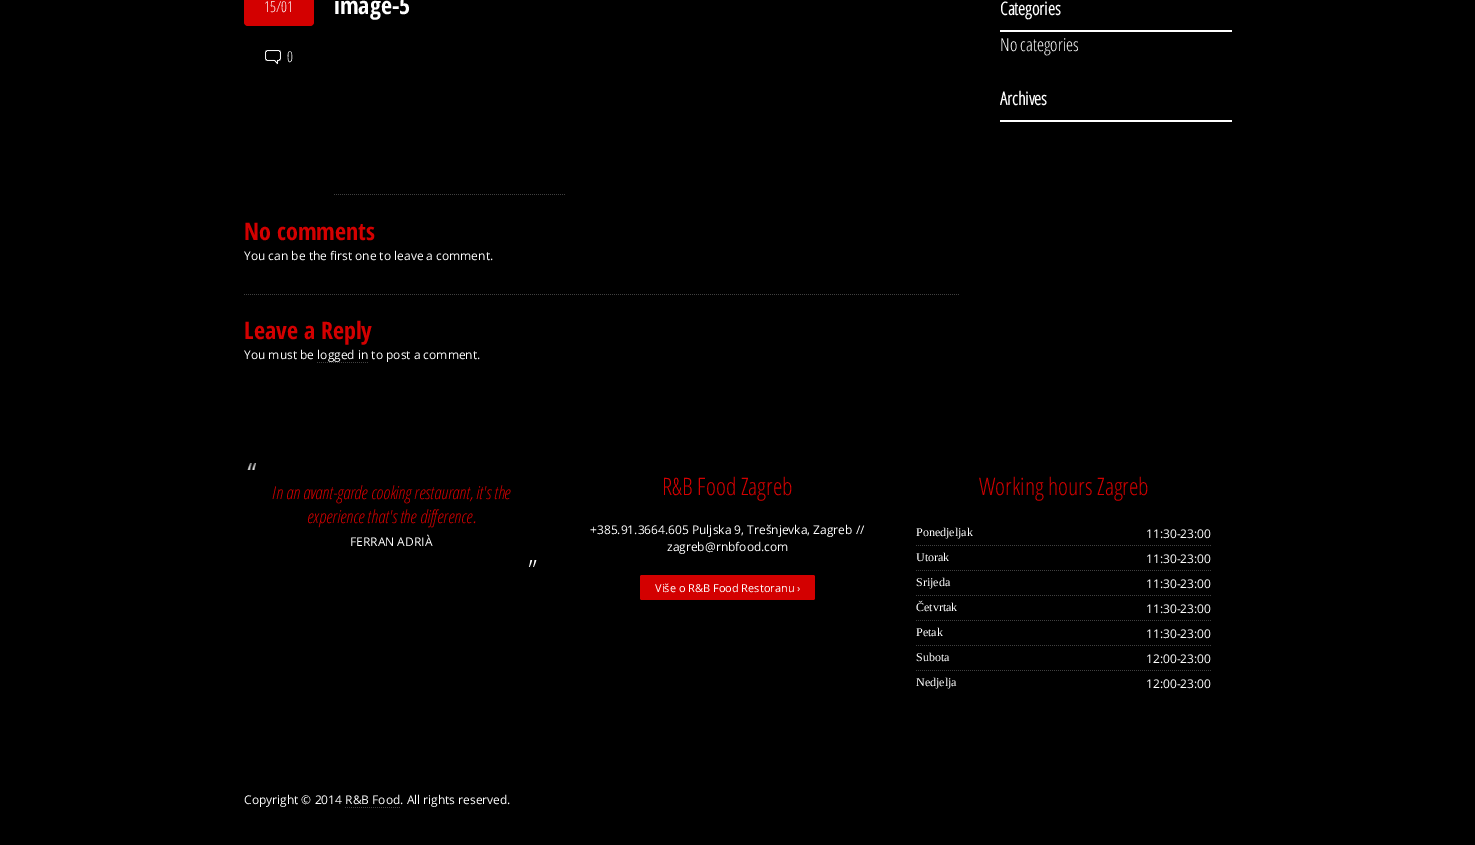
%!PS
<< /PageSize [1475 845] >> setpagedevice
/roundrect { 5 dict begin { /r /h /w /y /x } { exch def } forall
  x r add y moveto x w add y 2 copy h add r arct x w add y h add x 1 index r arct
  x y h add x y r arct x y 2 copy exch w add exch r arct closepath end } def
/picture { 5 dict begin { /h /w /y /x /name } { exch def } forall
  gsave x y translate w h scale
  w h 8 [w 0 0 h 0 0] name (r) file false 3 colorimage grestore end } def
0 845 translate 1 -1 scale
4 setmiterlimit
0 setgray
0 0 1475 845 rectfill
0.827 0 0 setrgbcolor
244 -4 70 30 4 roundrect fill
/OpenSans-Light [15 0 0 -15 0 0] selectfont
1 setgray
264 12 moveto (15/01) show
(img1.rgb) 265 50 16 15 picture
287 62 moveto (0) show
/OpenSansCondensed-Bold [24 0 0 -24 0 0] selectfont
334 14 moveto (image-5) show
(img2.rgb) 334 194 231 1 picture
0.827 0 0 setrgbcolor
244 240 moveto (No comments) show
/OpenSans-Regular [12 0 0 -12 0 0] selectfont
1 setgray
244 260 moveto (You can be the first one to leave a comment.) show
(img3.rgb) 244 294 715 1 picture
/OpenSansCondensed-Bold [24 0 0 -24 0 0] selectfont
0.827 0 0 setrgbcolor
244 339 moveto (Leave a Reply) show
/OpenSans-Regular [12 0 0 -12 0 0] selectfont
1 setgray
244 359 moveto (You must be logged in to post a comment.) show
(img4.rgb) 317 362 51 1 picture
1000 30 232 2 rectfill
/OpenSans-Bold [18 0 0 -18 0 0] selectfont
1000 15 moveto (Categories) show
/OpenSans-Light [18 0 0 -18 0 0] selectfont
1000 51 moveto (No categories) show
1000 120 232 2 rectfill
/OpenSans-Bold [18 0 0 -18 0 0] selectfont
1000 105 moveto (Archives) show
(img5.rgb) 247 463 10 7 picture
/OpenSans-LightItalic [18 0 0 -18 0 0] selectfont
0.827 0 0 setrgbcolor
272 499 moveto (In an avant-garde cooking restaurant, it's the) show
307 523 moveto (experience that's the difference.) show
(img6.rgb) 528 560 9 7 picture
/OpenSans-Regular [12 0 0 -12 0 0] selectfont
1 setgray
350 546 moveto (FERRAN ADRIÀ) show
/OpenSans-Light [24 0 0 -24 0 0] selectfont
0.827 0 0 setrgbcolor
662 495 moveto (R&B Food Zagreb) show
/OpenSans-Regular [12 0 0 -12 0 0] selectfont
1 setgray
590 534 moveto (+385.91.3664.605 Puljska 9, Trešnjevka, Zagreb //) show
667 551 moveto (zagreb@rnbfood.com) show
0.827 0 0 setrgbcolor
640 575 175 25 2 roundrect fill
/OpenSans-Regular [11 0 0 -11 0 0] selectfont
1 setgray
655 592 moveto (Više o R&B Food Restoranu ›) show
/OpenSans-Light [24 0 0 -24 0 0] selectfont
0.827 0 0 setrgbcolor
979 495 moveto (Working hours Zagreb) show
(img7.rgb) 916 545 295 1 picture
/LiberationSerif-Regular [12 0 0 -12 0 0] selectfont
1 setgray
916 536 moveto (Ponedjeljak) show
/OpenSans-Regular [12 0 0 -12 0 0] selectfont
1146 538 moveto (11:30-23:00) show
(img7.rgb) 916 570 295 1 picture
/LiberationSerif-Regular [12 0 0 -12 0 0] selectfont
916 561 moveto (Utorak) show
/OpenSans-Regular [12 0 0 -12 0 0] selectfont
1146 563 moveto (11:30-23:00) show
(img7.rgb) 916 595 295 1 picture
/LiberationSerif-Regular [12 0 0 -12 0 0] selectfont
916 586 moveto (Srijeda) show
/OpenSans-Regular [12 0 0 -12 0 0] selectfont
1146 588 moveto (11:30-23:00) show
(img7.rgb) 916 620 295 1 picture
/LiberationSerif-Regular [12 0 0 -12 0 0] selectfont
916 611 moveto (Četvrtak) show
/OpenSans-Regular [12 0 0 -12 0 0] selectfont
1146 613 moveto (11:30-23:00) show
(img7.rgb) 916 645 295 1 picture
/LiberationSerif-Regular [12 0 0 -12 0 0] selectfont
916 636 moveto (Petak) show
/OpenSans-Regular [12 0 0 -12 0 0] selectfont
1146 638 moveto (11:30-23:00) show
(img7.rgb) 916 670 295 1 picture
/LiberationSerif-Regular [12 0 0 -12 0 0] selectfont
916 661 moveto (Subota) show
/OpenSans-Regular [12 0 0 -12 0 0] selectfont
1146 663 moveto (12:00-23:00) show
/LiberationSerif-Regular [12 0 0 -12 0 0] selectfont
916 686 moveto (Nedjelja) show
/OpenSans-Regular [12 0 0 -12 0 0] selectfont
1146 688 moveto (12:00-23:00) show
244 804 moveto (Copyright © 2014 R&B Food. All rights reserved.) show
(img8.rgb) 345 807 55 1 picture
showpage
